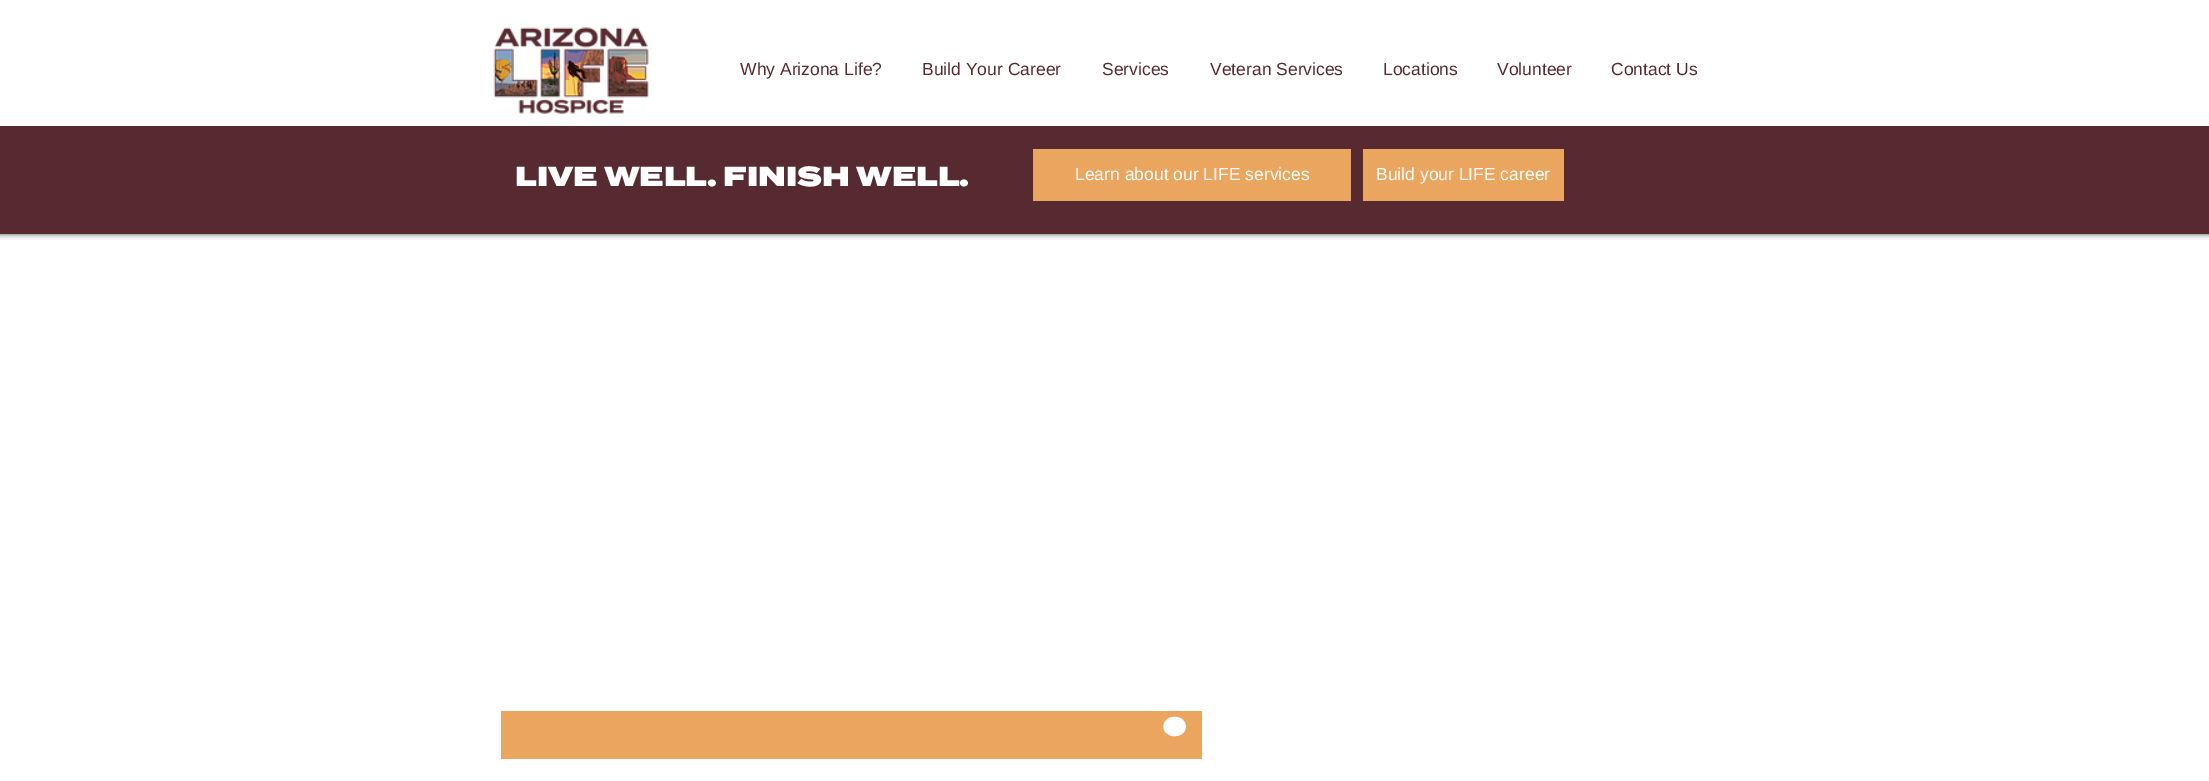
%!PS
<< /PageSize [2209 781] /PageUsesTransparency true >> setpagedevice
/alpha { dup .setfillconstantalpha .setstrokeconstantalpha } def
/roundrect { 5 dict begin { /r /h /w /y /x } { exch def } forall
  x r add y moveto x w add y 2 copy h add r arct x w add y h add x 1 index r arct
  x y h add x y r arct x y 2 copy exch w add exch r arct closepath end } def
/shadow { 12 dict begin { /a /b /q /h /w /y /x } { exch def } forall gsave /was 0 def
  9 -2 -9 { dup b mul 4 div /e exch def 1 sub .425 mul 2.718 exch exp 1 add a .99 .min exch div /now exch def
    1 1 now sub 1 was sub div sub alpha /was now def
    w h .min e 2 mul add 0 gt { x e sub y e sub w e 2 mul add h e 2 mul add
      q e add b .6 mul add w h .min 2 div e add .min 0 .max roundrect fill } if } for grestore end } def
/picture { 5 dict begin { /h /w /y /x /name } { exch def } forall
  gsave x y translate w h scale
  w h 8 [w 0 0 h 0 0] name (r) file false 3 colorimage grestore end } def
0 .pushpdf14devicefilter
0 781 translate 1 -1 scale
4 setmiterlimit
1 setgray
0 0 2209 781 rectfill
gsave
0 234 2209 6 rectclip
0 setgray
0 0 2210 234 0 3 0.7 shadow
grestore
(img1.rgb) 493 27 156 87 picture
/LiberationSans-Regular [17.5 0 0 -17.5 0 0] selectfont
0.341 0.165 0.192 setrgbcolor
740 75 moveto (Why Arizona Life?) show
922 75 moveto (Build Your Career) show
1102 75 moveto (Services) show
1210 75 moveto (Veteran Services) show
1383 75 moveto (Locations) show
1497 75 moveto (Volunteer) show
1611 75 moveto (Contact Us) show
0 126 2209 108 rectfill
/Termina-Black [27.5 0 0 -27.5 0 0] selectfont
1 setgray
515 186 moveto (LIVE WELL. FINISH WELL.) show
0.918 0.647 0.369 setrgbcolor
1033 149 318 52 rectfill
/LiberationSans-Regular [17.5 0 0 -17.5 0 0] selectfont
1 setgray
1075 180 moveto (Learn about our LIFE services) show
0.918 0.647 0.369 setrgbcolor
1363 149 201 52 rectfill
1 setgray
1376 180 moveto (Build your LIFE career) show
0.918 0.647 0.369 setrgbcolor
501 711 701 48 rectfill
/Termina-Black [76 0 0 -76 0 0] selectfont
1 setgray
1161 735 moveto (.) show
.poppdf14devicefilter showpage
